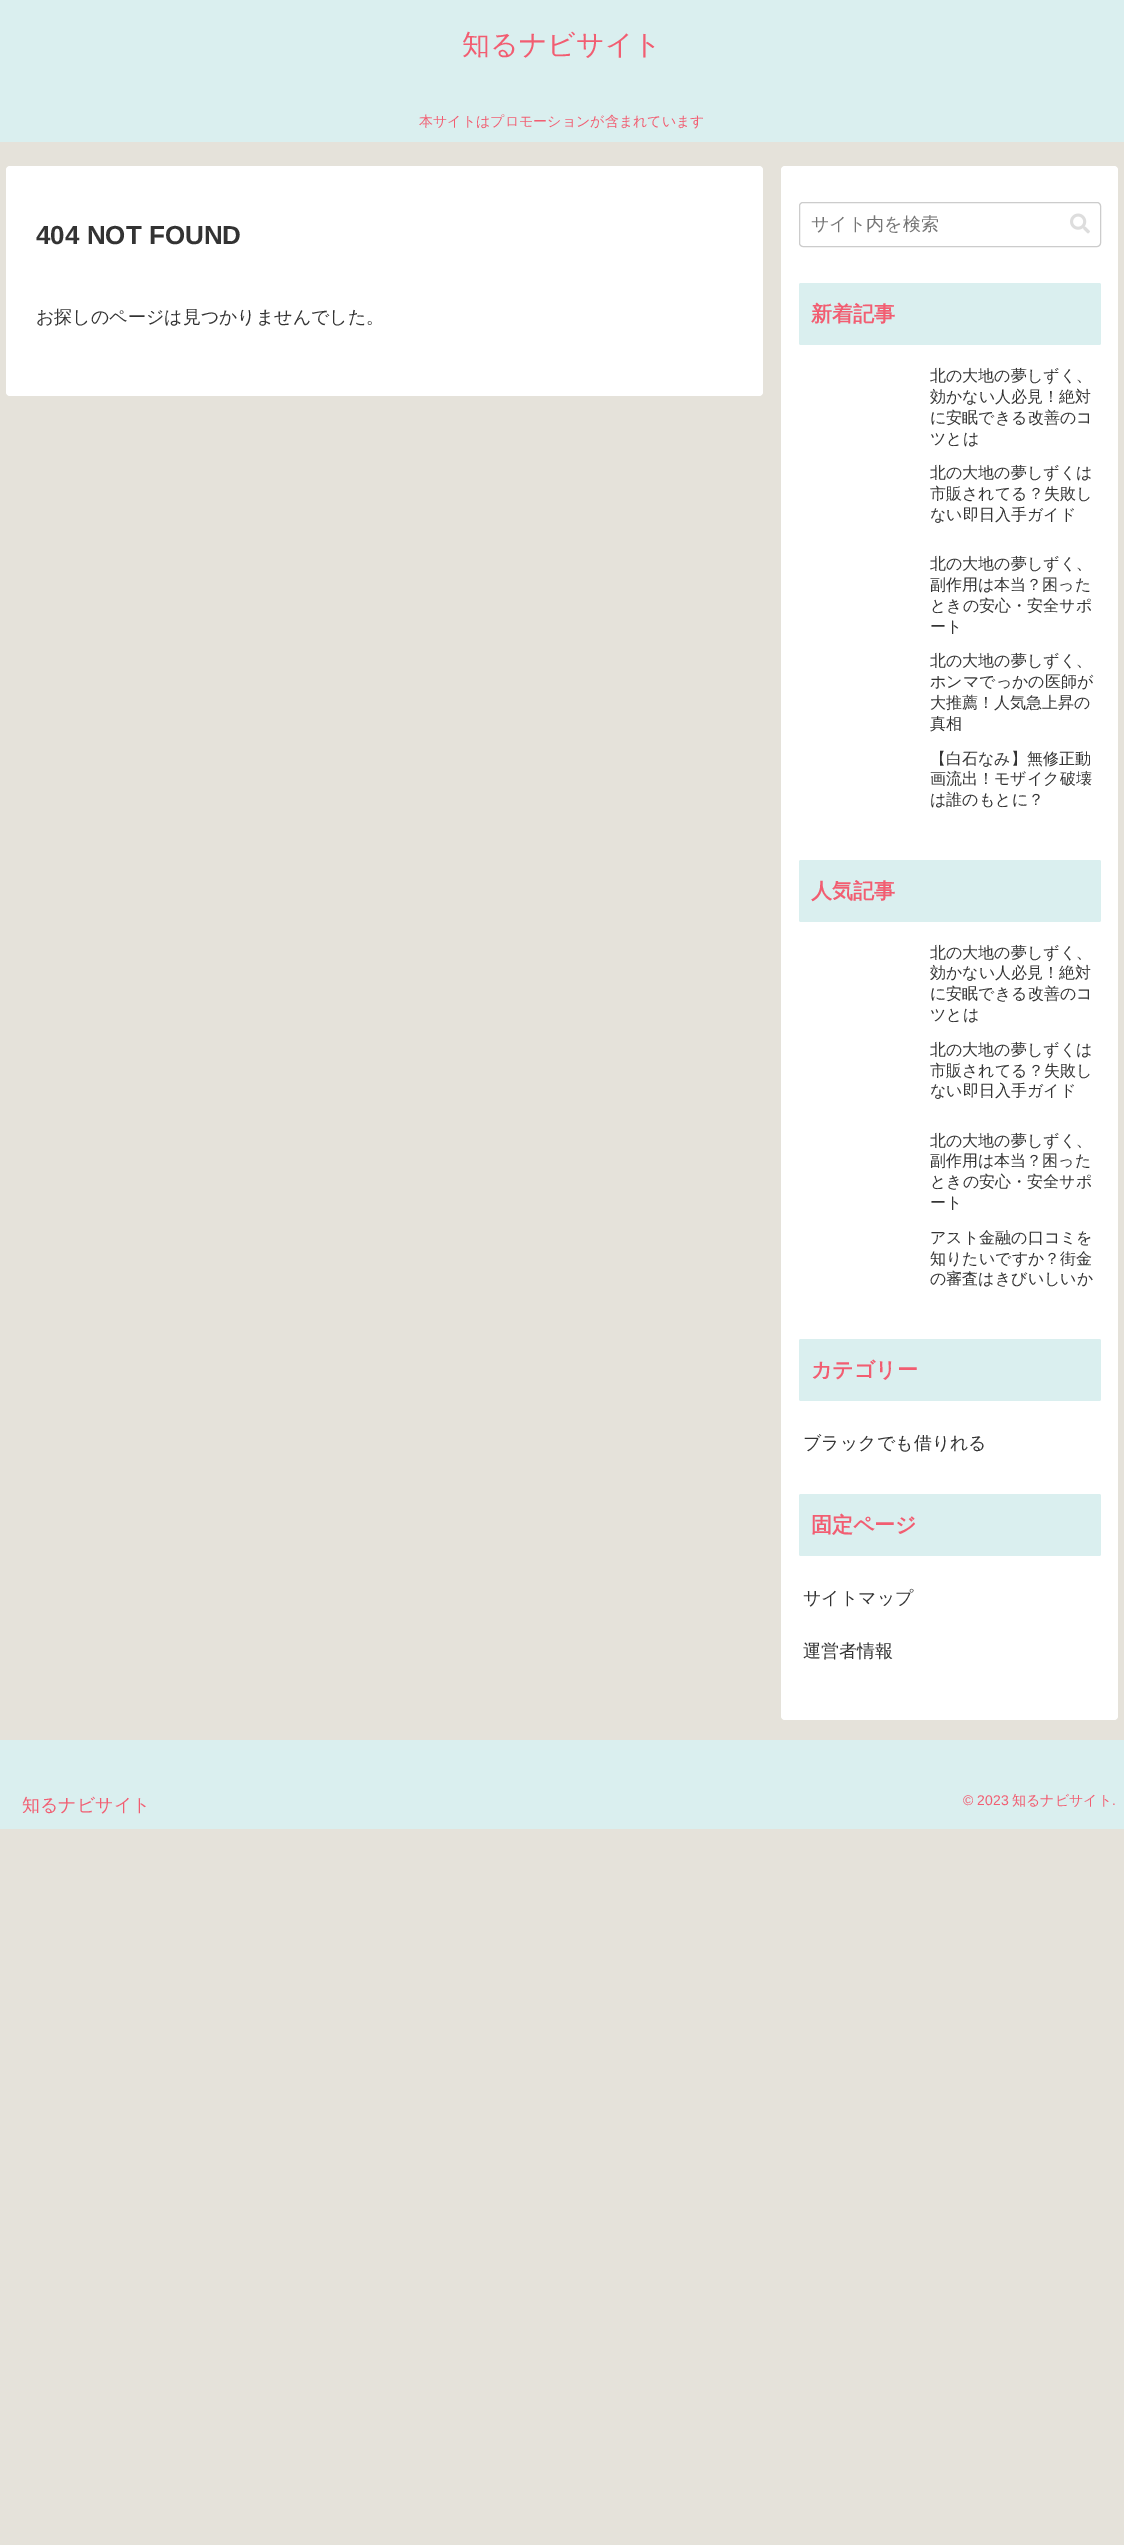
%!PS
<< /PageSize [1124 2545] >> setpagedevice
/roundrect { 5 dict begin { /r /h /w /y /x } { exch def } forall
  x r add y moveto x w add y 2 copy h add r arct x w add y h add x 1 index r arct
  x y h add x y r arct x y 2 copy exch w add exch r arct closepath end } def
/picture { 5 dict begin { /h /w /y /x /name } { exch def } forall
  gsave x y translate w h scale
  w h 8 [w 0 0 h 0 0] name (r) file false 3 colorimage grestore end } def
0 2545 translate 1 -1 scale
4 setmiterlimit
0.898 0.886 0.855 setrgbcolor
0 0 1124 2545 rectfill
0.855 0.937 0.937 setrgbcolor
0 0 1124 142 rectfill
/WenQuanYiZenHei-Medium [28 0 0 -28 0 0] selectfont
0.949 0.365 0.443 setrgbcolor
462 54 moveto (知るナビサイト) show
/WenQuanYiZenHei-Medium [14 0 0 -14 0 0] selectfont
419 126 moveto (本サイトはプロモーションが含まれています) show
1 setgray
6 166 757 230 4 roundrect fill
/LiberationSans-Bold [26 0 0 -26 0 0] selectfont
0.2 setgray
36 244 moveto (404 NOT FOUND) show
/WenQuanYiZenHei-Medium [18 0 0 -18 0 0] selectfont
36 323 moveto (お探しのページは見つかりませんでした。) show
1 setgray
781 166 337 1554 4 roundrect fill
0.8 setgray
799.5 202.5 301 44 3.5 roundrect stroke
0.459 setgray
811 230 moveto (サイト内を検索) show
(img1.rgb) 1070 213 20 21 picture
0.855 0.937 0.937 setrgbcolor
799 283 302 62 2 roundrect fill
/WenQuanYiZenHei-Bold [21 0 0 -21 0 0] selectfont
0.949 0.365 0.443 setrgbcolor
811 321 moveto (新着記事) show
/WenQuanYiZenHei-Medium [16 0 0 -16 0 0] selectfont
0.2 setgray
930 381 moveto (北の大地の夢しずく、) show
930 402 moveto (効かない人必見！絶対) show
930 423 moveto (に安眠できる改善のコ) show
930 444 moveto (ツとは) show
930 478 moveto (北の大地の夢しずくは) show
930 499 moveto (市販されてる？失敗し) show
930 520 moveto (ない即日入手ガイド) show
930 569 moveto (北の大地の夢しずく、) show
930 590 moveto (副作用は本当？困った) show
930 611 moveto (ときの安心・安全サポ) show
930 632 moveto (ート) show
930 666 moveto (北の大地の夢しずく、) show
930 687 moveto (ホンマでっかの医師が) show
930 708 moveto (大推薦！人気急上昇の) show
930 729 moveto (真相) show
930 764 moveto (【白石なみ】無修正動) show
930 784 moveto (画流出！モザイク破壊) show
930 805 moveto (は誰のもとに？) show
0.855 0.937 0.937 setrgbcolor
799 860 302 62 2 roundrect fill
/WenQuanYiZenHei-Bold [21 0 0 -21 0 0] selectfont
0.949 0.365 0.443 setrgbcolor
811 898 moveto (人気記事) show
/WenQuanYiZenHei-Medium [16 0 0 -16 0 0] selectfont
0.2 setgray
930 958 moveto (北の大地の夢しずく、) show
930 978 moveto (効かない人必見！絶対) show
930 999 moveto (に安眠できる改善のコ) show
930 1020 moveto (ツとは) show
930 1055 moveto (北の大地の夢しずくは) show
930 1076 moveto (市販されてる？失敗し) show
930 1096 moveto (ない即日入手ガイド) show
930 1146 moveto (北の大地の夢しずく、) show
930 1166 moveto (副作用は本当？困った) show
930 1187 moveto (ときの安心・安全サポ) show
930 1208 moveto (ート) show
930 1243 moveto (アスト金融の口コミを) show
930 1264 moveto (知りたいですか？街金) show
930 1284 moveto (の審査はきびいしいか) show
0.855 0.937 0.937 setrgbcolor
799 1339 302 62 2 roundrect fill
/WenQuanYiZenHei-Bold [21 0 0 -21 0 0] selectfont
0.949 0.365 0.443 setrgbcolor
811 1377 moveto (カテゴリー) show
/WenQuanYiZenHei-Medium [18 0 0 -18 0 0] selectfont
0.2 setgray
803 1449 moveto (ブラックでも借りれる) show
0.855 0.937 0.937 setrgbcolor
799 1494 302 62 2 roundrect fill
/WenQuanYiZenHei-Bold [21 0 0 -21 0 0] selectfont
0.949 0.365 0.443 setrgbcolor
811 1532 moveto (固定ページ) show
/WenQuanYiZenHei-Medium [18 0 0 -18 0 0] selectfont
0.2 setgray
803 1604 moveto (サイトマップ) show
803 1657 moveto (運営者情報) show
0.855 0.937 0.937 setrgbcolor
0 1740 1124 89 rectfill
0.949 0.365 0.443 setrgbcolor
22 1811 moveto (知るナビサイト) show
/LiberationSans-Regular [14 0 0 -14 0 0] selectfont
963 1805 moveto (© 2023) show
/WenQuanYiZenHei-Medium [14 0 0 -14 0 0] selectfont
1012 1805 moveto (知るナビサイト) show
/LiberationSans-Regular [14 0 0 -14 0 0] selectfont
1112 1805 moveto (.) show
showpage
